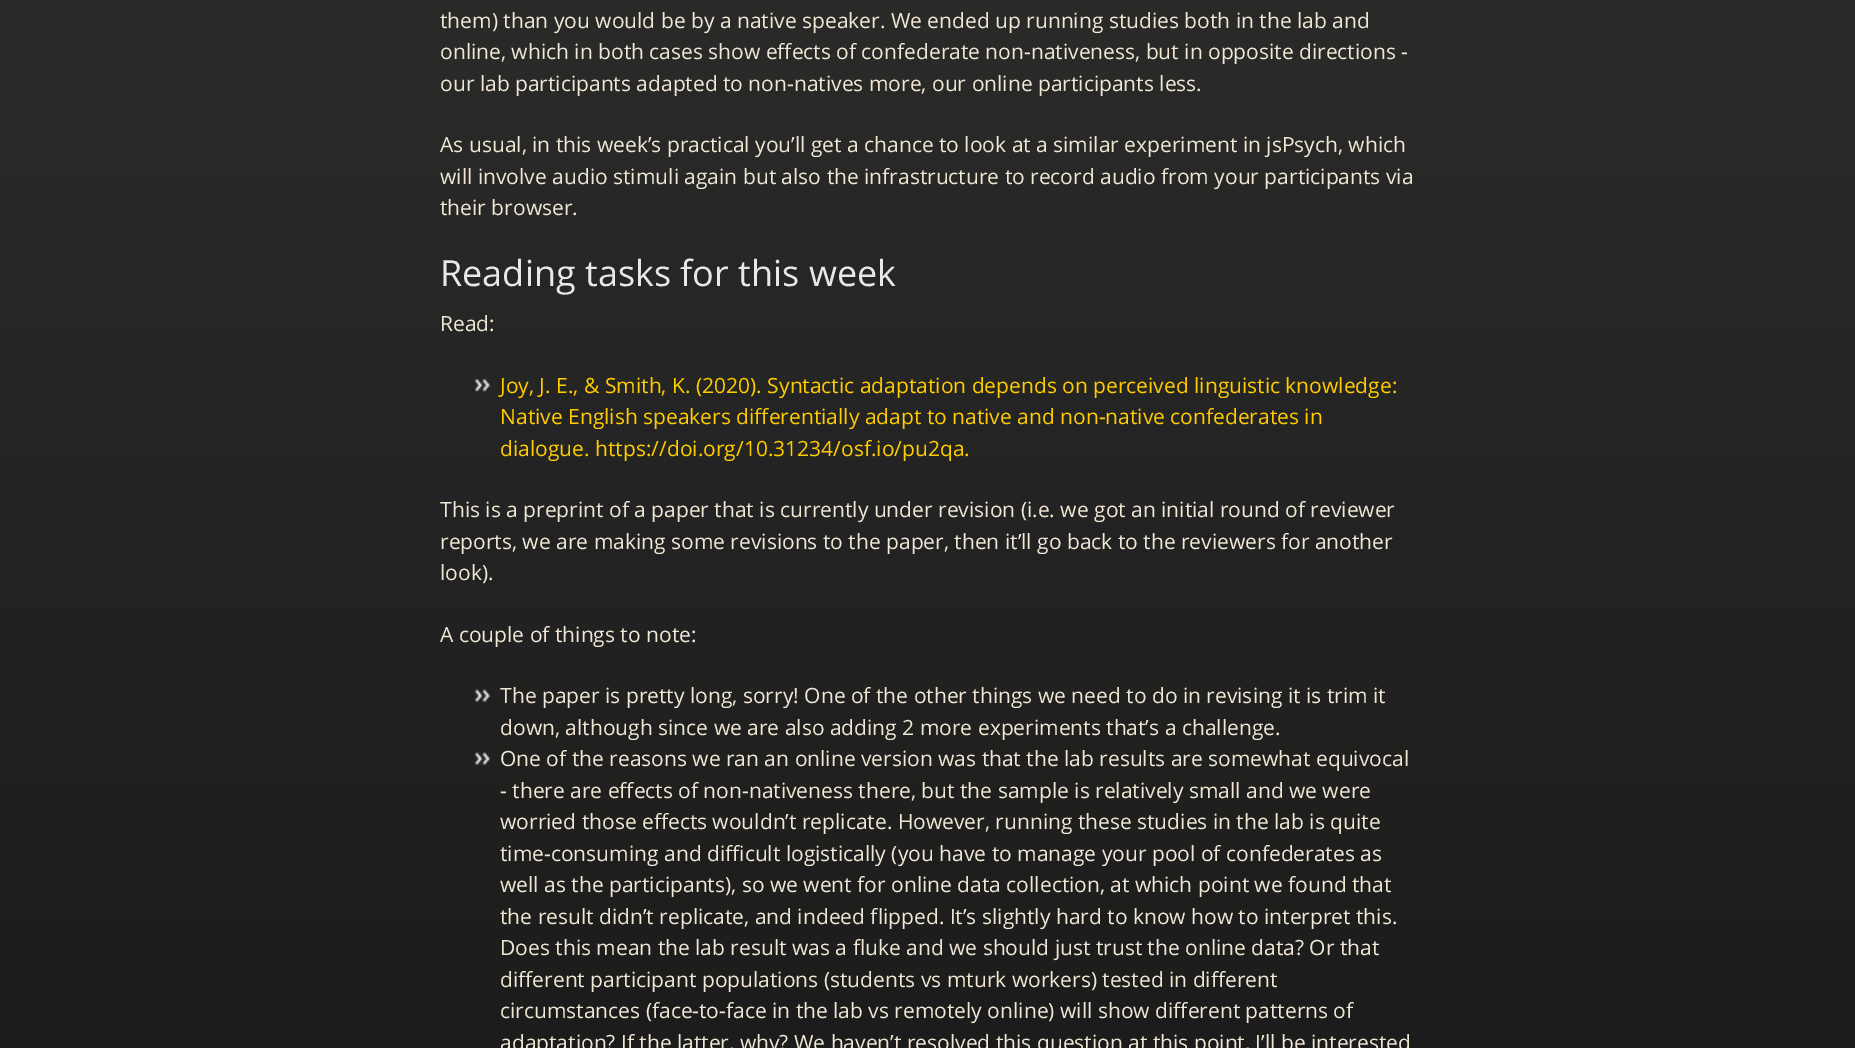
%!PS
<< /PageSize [1855 1048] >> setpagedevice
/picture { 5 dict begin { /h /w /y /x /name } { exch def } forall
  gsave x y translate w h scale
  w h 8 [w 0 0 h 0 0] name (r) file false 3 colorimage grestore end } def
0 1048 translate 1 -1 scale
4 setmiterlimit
1 setgray
0 0 1855 1048 rectfill
gsave newpath 0 0 moveto 1855 0 lineto 1855 1048 lineto 0 1048 lineto closepath clip newpath
<< /ShadingType 2 /ColorSpace /DeviceRGB /Coords [928 0 928 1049] /Extend [true true] /Function << /FunctionType 2 /Domain [0 1] /C0 [0.165 0.165 0.161] /C1 [0.11 0.11 0.11] /N 1 >> >> shfill grestore
/OpenSans-Regular [21 0 0 -21 0 0] selectfont
0.941 0.906 0.835 setrgbcolor
440 28 moveto (them\) than you would be by a native speaker. We ended up running studies both in the lab and) show
440 59 moveto (online, which in both cases show effects of confederate non-nativeness, but in opposite directions -) show
440 91 moveto (our lab participants adapted to non-natives more, our online participants less.) show
440 152 moveto (As usual, in this week’s practical you’ll get a chance to look at a similar experiment in jsPsych, which) show
440 184 moveto (will involve audio stimuli again but also the infrastructure to record audio from your participants via) show
440 215 moveto (their browser.) show
/OpenSans-Regular [36 0 0 -36 0 0] selectfont
0.91 setgray
440 286 moveto (Reading tasks for this week) show
/OpenSans-Regular [21 0 0 -21 0 0] selectfont
0.941 0.906 0.835 setrgbcolor
440 331 moveto (Read:) show
(img1.rgb) 475 379 16 13 picture
1 0.8 0 setrgbcolor
500 393 moveto (Joy, J. E., & Smith, K. \(2020\). Syntactic adaptation depends on perceived linguistic knowledge:) show
500 424 moveto (Native English speakers differentially adapt to native and non-native confederates in) show
500 456 moveto (dialogue. https://doi.org/10.31234/osf.io/pu2qa.) show
0.941 0.906 0.835 setrgbcolor
440 517 moveto (This is a preprint of a paper that is currently under revision \(i.e. we got an initial round of reviewer) show
440 549 moveto (reports, we are making some revisions to the paper, then it’ll go back to the reviewers for another) show
440 580 moveto (look\).) show
440 642 moveto (A couple of things to note:) show
(img2.rgb) 475 689 16 13 picture
500 703 moveto (The paper is pretty long, sorry! One of the other things we need to do in revising it is trim it) show
500 735 moveto (down, although since we are also adding 2 more experiments that’s a challenge.) show
(img3.rgb) 475 752 16 13 picture
500 766 moveto (One of the reasons we ran an online version was that the lab results are somewhat equivocal) show
500 798 moveto (- there are effects of non-nativeness there, but the sample is relatively small and we were) show
500 829 moveto (worried those effects wouldn’t replicate. However, running these studies in the lab is quite) show
500 861 moveto (time-consuming and difficult logistically \(you have to manage your pool of confederates as) show
500 892 moveto (well as the participants\), so we went for online data collection, at which point we found that) show
500 924 moveto (the result didn’t replicate, and indeed flipped. It’s slightly hard to know how to interpret this.) show
500 955 moveto (Does this mean the lab result was a fluke and we should just trust the online data? Or that) show
500 987 moveto (different participant populations \(students vs mturk workers\) tested in different) show
500 1018 moveto (circumstances \(face-to-face in the lab vs remotely online\) will show different patterns of) show
500 1050 moveto (adaptation? If the latter, why? We haven’t resolved this question at this point, I’ll be interested) show
showpage
